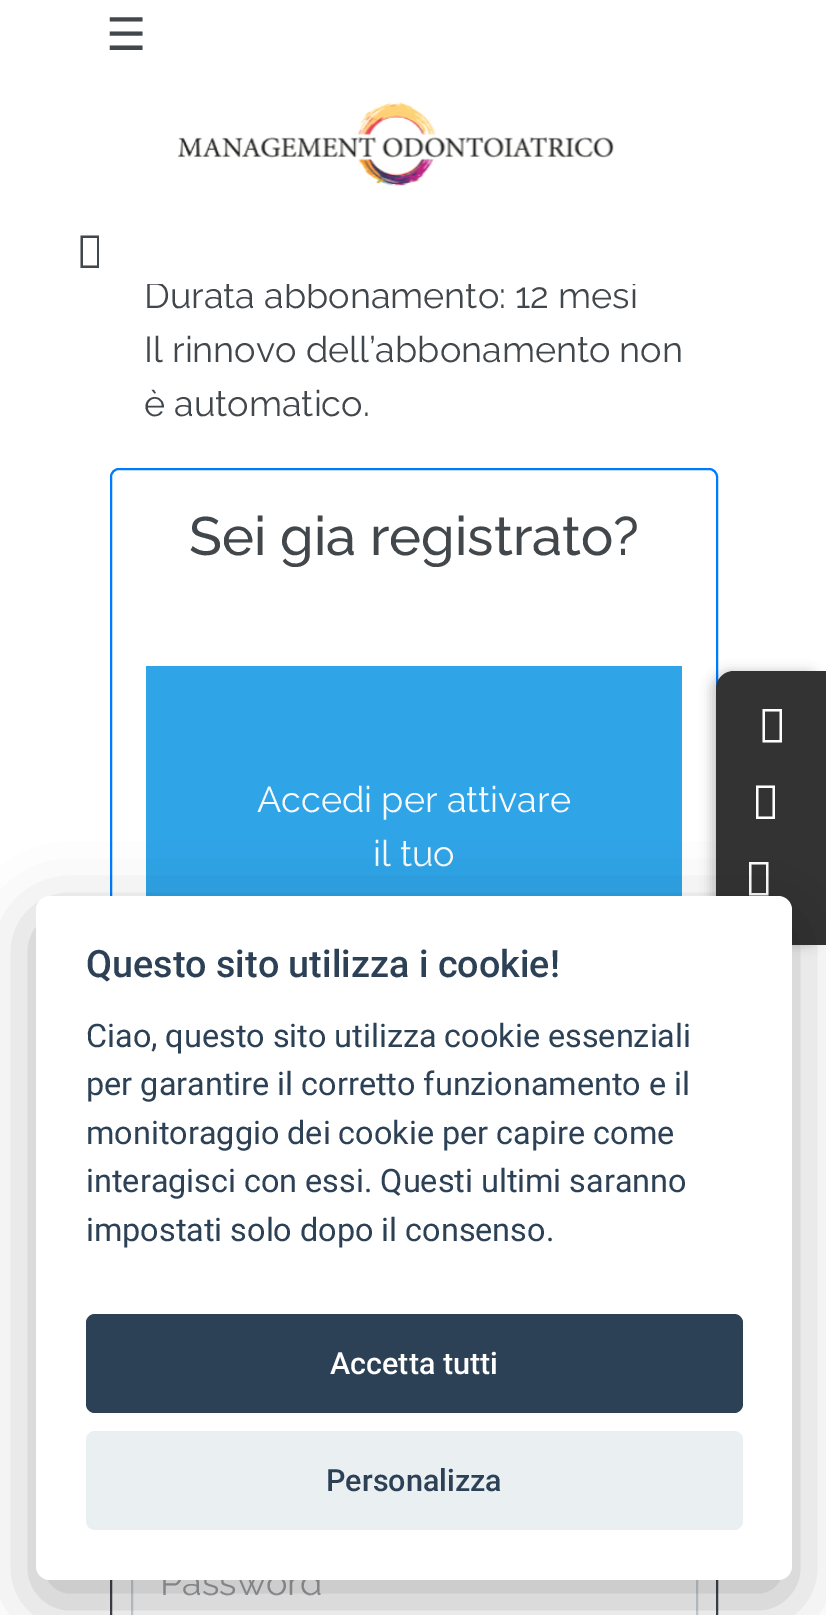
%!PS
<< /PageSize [826 1615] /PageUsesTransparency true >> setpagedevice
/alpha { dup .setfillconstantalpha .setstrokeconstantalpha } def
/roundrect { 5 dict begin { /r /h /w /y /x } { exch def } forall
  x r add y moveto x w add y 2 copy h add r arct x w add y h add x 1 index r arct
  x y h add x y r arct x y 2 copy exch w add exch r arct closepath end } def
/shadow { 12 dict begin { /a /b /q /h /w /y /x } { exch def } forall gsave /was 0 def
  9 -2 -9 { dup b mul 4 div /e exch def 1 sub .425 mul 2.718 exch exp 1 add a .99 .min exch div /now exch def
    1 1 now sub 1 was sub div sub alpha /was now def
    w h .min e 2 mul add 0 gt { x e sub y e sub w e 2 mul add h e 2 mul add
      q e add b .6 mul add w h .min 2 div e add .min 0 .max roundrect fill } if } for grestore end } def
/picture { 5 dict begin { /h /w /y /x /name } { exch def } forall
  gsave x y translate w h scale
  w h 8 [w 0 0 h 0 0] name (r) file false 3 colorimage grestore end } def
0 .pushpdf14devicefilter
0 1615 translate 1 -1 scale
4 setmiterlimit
1 setgray
0 0 826 1615 rectfill
/Raleway-Regular [36 0 0 -36 0 0] selectfont
0.259 0.278 0.298 setrgbcolor
144 308 moveto (Durata abbonamento: 12 mesi) show
1 setgray
147 281 489 3 rectfill
/DejaVuSans-Regular [45 0 0 -45 0 0] selectfont
0.259 0.278 0.298 setrgbcolor
106 50 moveto (☰) show
(img1.rgb) 178 101 436 89 picture
newpath 80.5 268 moveto 80.5 235.5 lineto 99 235.5 lineto 99 268 lineto closepath 83 265.5 moveto 97 265.5 lineto 97 238 lineto 83 238 lineto closepath fill
/Raleway-Regular [36 0 0 -36 0 0] selectfont
144 362 moveto (Il rinnovo dell’abbonamento non) show
144 416 moveto (è automatico.) show
0 0.482 1 setrgbcolor
2 setlinewidth
111 469 606 734 8 roundrect stroke
/Raleway-Medium [54 0 0 -54 0 0] selectfont
0.259 0.278 0.298 setrgbcolor
189 555 moveto (Sei gia registrato?) show
0.184 0.643 0.906 setrgbcolor
146 666 536 230 rectfill
/Raleway-Regular [36 0 0 -36 0 0] selectfont
0.973 0.976 0.98 setrgbcolor
257 812 moveto (Accedi per attivare) show
373 866 moveto (il tuo) show
0.259 0.278 0.298 setrgbcolor
111 1205 606 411 rectstroke
0.808 0.831 0.855 setrgbcolor
132 1542 565 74 rectstroke
0.631 0.639 0.651 setrgbcolor
160 1595 moveto (Password) show
0 setgray
711 671 113 274 18 5.5 0.2 shadow
0.2 setgray
newpath 734 671 moveto 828 671 lineto 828 945 lineto 734 945 lineto 724 945 716 937 716 927 curveto 716 689 lineto 716 679 724 671 734 671 curveto closepath fill
1 setgray
newpath 762.5 742.5 moveto 762.5 709 lineto 782 709 lineto 782 742.5 lineto closepath 765 740 moveto 779.5 740 lineto 779.5 711.5 lineto 765 711.5 lineto closepath fill
newpath 756 819 moveto 756 785.5 lineto 775 785.5 lineto 775 819 lineto closepath 758.5 816.5 moveto 772.5 816.5 lineto 772.5 788 lineto 758.5 788 lineto closepath fill
newpath 749 895.5 moveto 749 862 lineto 768.5 862 lineto 768.5 895.5 lineto closepath 751.5 893 moveto 766 893 lineto 766 864.5 lineto 751.5 864.5 lineto closepath fill
0.008 0.008 0.012 setrgbcolor
36 918 756 684 14 34 0.28 shadow
1 setgray
36 896 756 684 14 roundrect fill
/Roboto-Medium [37.75 0 0 -37.75 0 0] selectfont
0.176 0.255 0.337 setrgbcolor
86 977 moveto (Questo sito utilizza i cookie!) show
/Roboto-Regular [32.4 0 0 -32.4 0 0] selectfont
86 1047 moveto (Ciao, questo sito utilizza cookie essenziali) show
86 1095 moveto (per garantire il corretto funzionamento e il) show
86 1144 moveto (monitoraggio dei cookie per capire come) show
86 1192 moveto (interagisci con essi. Questi ultimi saranno) show
86 1241 moveto (impostati solo dopo il consenso.) show
86 1314 657 99 9 roundrect fill
/Roboto-Medium [30.5 0 0 -30.5 0 0] selectfont
1 setgray
330 1374 moveto (Accetta tutti) show
0.918 0.937 0.949 setrgbcolor
86 1431 657 99 9 roundrect fill
0.176 0.255 0.337 setrgbcolor
326 1491 moveto (Personalizza) show
.poppdf14devicefilter showpage
